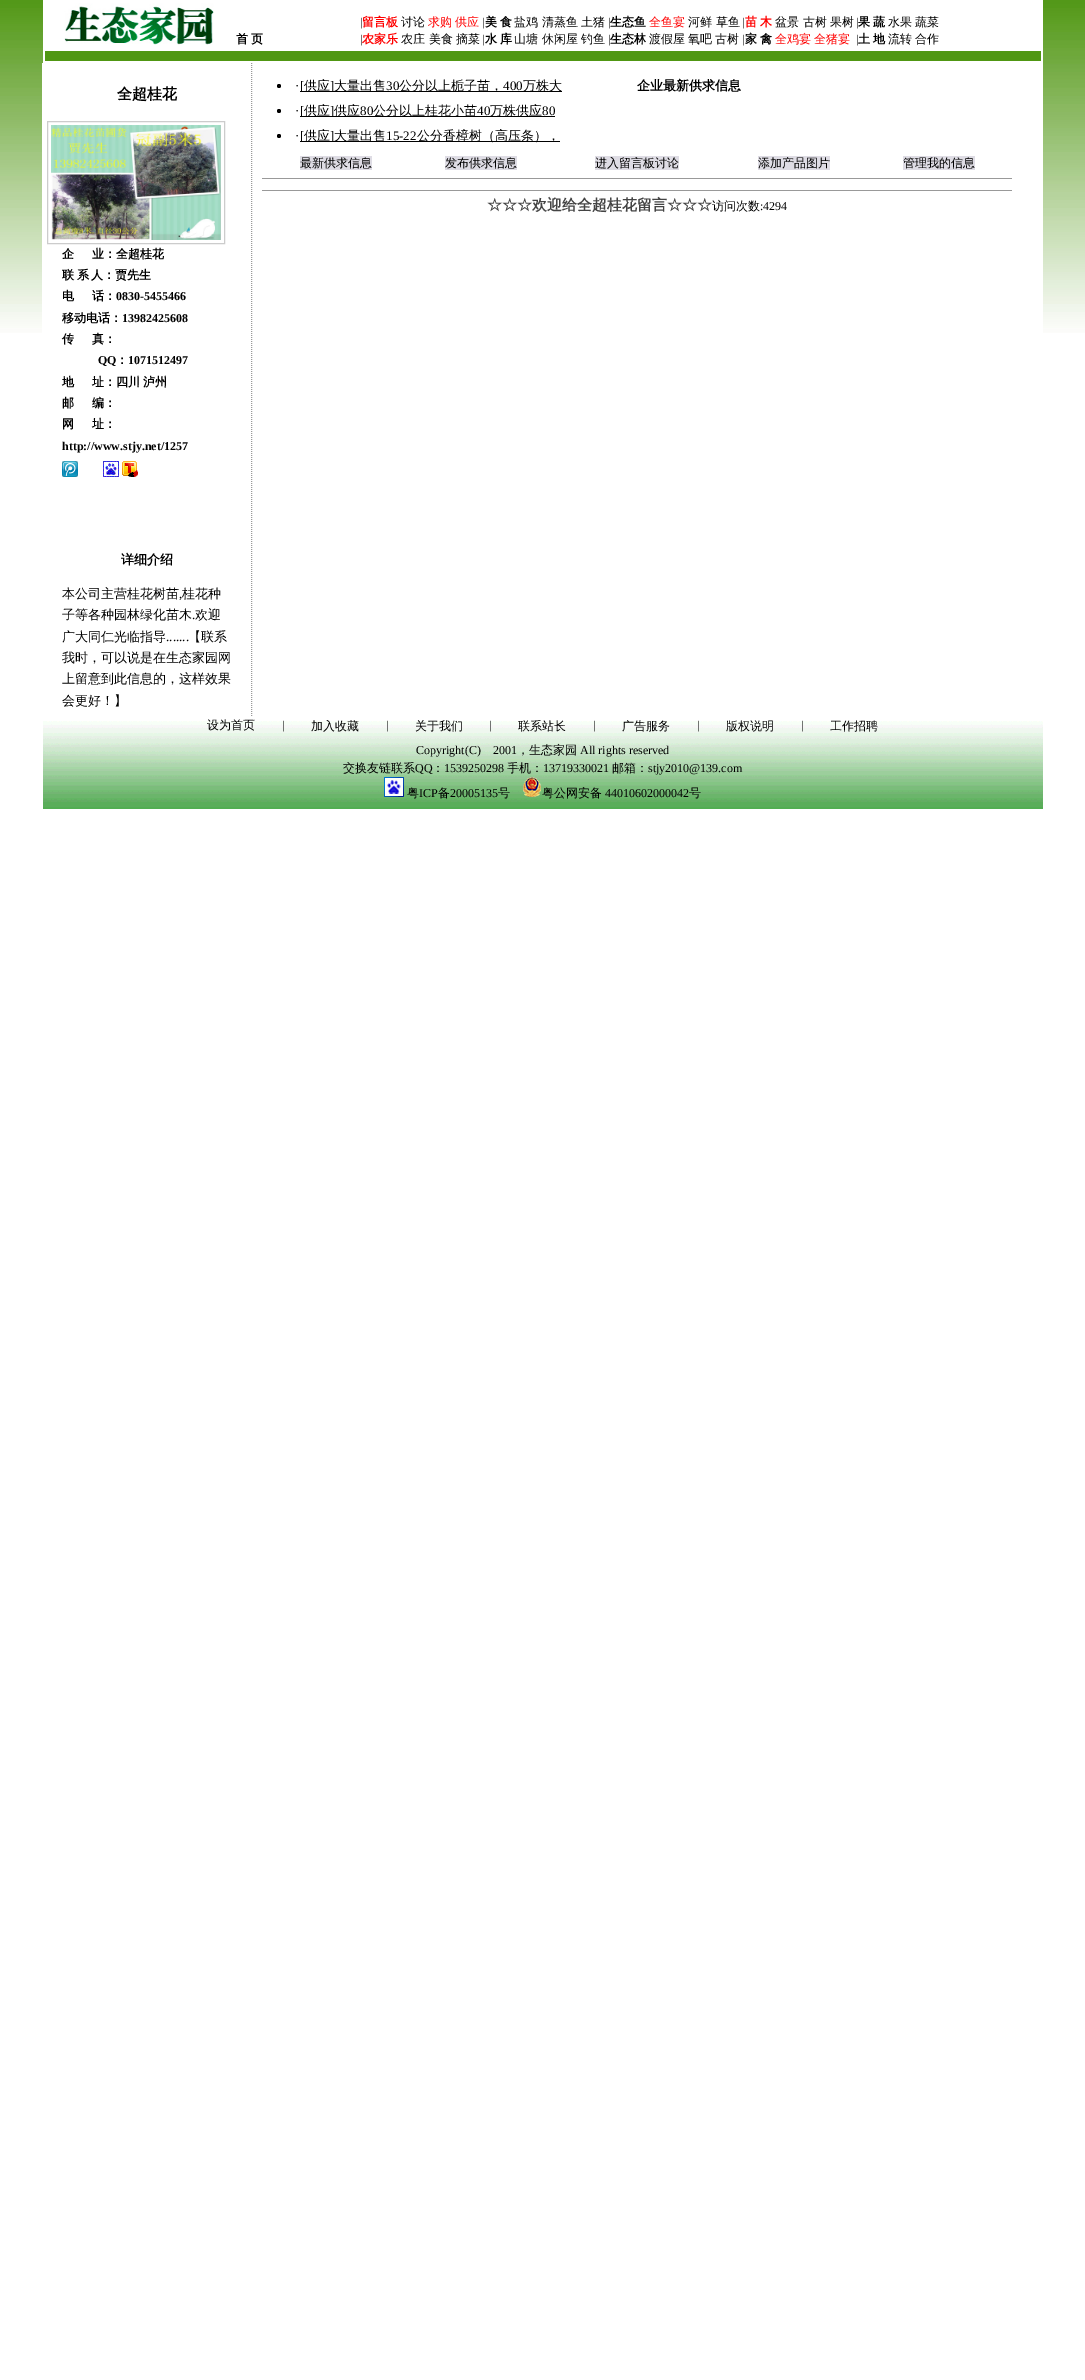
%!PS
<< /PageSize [1085 2380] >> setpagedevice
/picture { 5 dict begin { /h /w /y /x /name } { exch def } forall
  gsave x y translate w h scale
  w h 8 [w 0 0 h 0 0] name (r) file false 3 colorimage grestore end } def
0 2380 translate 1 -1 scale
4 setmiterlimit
1 setgray
0 0 1085 2380 rectfill
(img1.rgb) 0 0 1085 333 picture
43 0 1000 63 rectfill
(img2.rgb) 64 3 150 42 picture
/WenQuanYiZenHei-Bold [12 0 0 -12 0 0] selectfont
0 setgray
236 43 moveto -1 0 32 (首 页) widthshow
/LiberationSerif-Regular [12 0 0 -12 0 0] selectfont
360 26 moveto (|) show
/WenQuanYiZenHei-Bold [12 0 0 -12 0 0] selectfont
1 0 0 setrgbcolor
362 26 moveto (留言板) show
/WenQuanYiZenHei-Medium [12 0 0 -12 0 0] selectfont
0 setgray
401 26 moveto (讨论) show
1 0 0 setrgbcolor
428 26 moveto (求购) show
455 26 moveto (供应) show
/LiberationSerif-Regular [12 0 0 -12 0 0] selectfont
0 setgray
482 26 moveto (|) show
/WenQuanYiZenHei-Bold [12 0 0 -12 0 0] selectfont
485 26 moveto -1 0 32 (美 食) widthshow
/WenQuanYiZenHei-Medium [12 0 0 -12 0 0] selectfont
514 26 moveto (盐鸡 清蒸鱼 土猪) show
/LiberationSerif-Regular [12 0 0 -12 0 0] selectfont
608 26 moveto (|) show
/WenQuanYiZenHei-Bold [12 0 0 -12 0 0] selectfont
610 26 moveto (生态鱼) show
/WenQuanYiZenHei-Medium [12 0 0 -12 0 0] selectfont
1 0 0 setrgbcolor
649 26 moveto (全鱼宴) show
0 setgray
688 26 moveto (河鲜 草鱼) show
/LiberationSerif-Regular [12 0 0 -12 0 0] selectfont
742 26 moveto (|) show
/WenQuanYiZenHei-Bold [12 0 0 -12 0 0] selectfont
1 0 0 setrgbcolor
745 26 moveto -1 0 32 (苗 木) widthshow
/WenQuanYiZenHei-Medium [12 0 0 -12 0 0] selectfont
0 setgray
775 26 moveto (盆景 古树 果树) show
/LiberationSerif-Regular [12 0 0 -12 0 0] selectfont
856 26 moveto (|) show
/WenQuanYiZenHei-Bold [12 0 0 -12 0 0] selectfont
858 26 moveto -1 0 32 (果 蔬) widthshow
/WenQuanYiZenHei-Medium [12 0 0 -12 0 0] selectfont
888 26 moveto (水果) show
915 26 moveto (蔬菜) show
/LiberationSerif-Regular [12 0 0 -12 0 0] selectfont
360 43 moveto (|) show
/WenQuanYiZenHei-Bold [12 0 0 -12 0 0] selectfont
1 0 0 setrgbcolor
362 43 moveto (农家乐) show
/WenQuanYiZenHei-Medium [12 0 0 -12 0 0] selectfont
0 setgray
401 43 moveto (农庄 美食 摘菜) show
/LiberationSerif-Regular [12 0 0 -12 0 0] selectfont
482 43 moveto (|) show
/WenQuanYiZenHei-Bold [12 0 0 -12 0 0] selectfont
485 43 moveto -1 0 32 (水 库) widthshow
/WenQuanYiZenHei-Medium [12 0 0 -12 0 0] selectfont
514 43 moveto (山塘 休闲屋 钓鱼) show
/LiberationSerif-Regular [12 0 0 -12 0 0] selectfont
608 43 moveto (|) show
/WenQuanYiZenHei-Bold [12 0 0 -12 0 0] selectfont
610 43 moveto (生态林) show
/WenQuanYiZenHei-Medium [12 0 0 -12 0 0] selectfont
649 43 moveto -1 0 32 (渡假屋 氧吧) widthshow
715 43 moveto (古树) show
/LiberationSerif-Regular [12 0 0 -12 0 0] selectfont
742 43 moveto (|) show
/WenQuanYiZenHei-Bold [12 0 0 -12 0 0] selectfont
745 43 moveto -1 0 32 (家 禽) widthshow
/WenQuanYiZenHei-Medium [12 0 0 -12 0 0] selectfont
1 0 0 setrgbcolor
775 43 moveto (全鸡宴) show
814 43 moveto (全猪宴) show
/LiberationSerif-Regular [12 0 0 -12 0 0] selectfont
0 setgray
856 43 moveto (|) show
/WenQuanYiZenHei-Bold [12 0 0 -12 0 0] selectfont
858 43 moveto -1 0 32 (土 地) widthshow
/WenQuanYiZenHei-Medium [12 0 0 -12 0 0] selectfont
888 43 moveto (流转) show
915 43 moveto (合作) show
0.314 0.592 0.075 setrgbcolor
45 51 996 10 rectfill
1 setgray
42 63 1001 270 rectfill
0.6 setgray
[1 1] 0 setdash
newpath 251.5 63 moveto 251.5 716 lineto stroke
/WenQuanYiZenHei-Bold [15 0 0 -15 0 0] selectfont
0 setgray
117 99 moveto (全超桂花) show
0.8 setgray
[] 0 setdash
47.5 121.5 177 122 rectstroke
(img3.rgb) 51 125 170 115 picture
/WenQuanYiZenHei-Bold [12 0 0 -12 0 0] selectfont
0 setgray
62 258 moveto (企) show
92 258 moveto (业：全超桂花) show
62 279 moveto -1 0 32 (联 系 人：贾先生) widthshow
62 300 moveto (电) show
92 300 moveto (话：) show
/LiberationSerif-Bold [12 0 0 -12 0 0] selectfont
116 300 moveto (0830-5455466) show
/WenQuanYiZenHei-Bold [12 0 0 -12 0 0] selectfont
62 322 moveto (移动电话：) show
/LiberationSerif-Bold [12 0 0 -12 0 0] selectfont
122 322 moveto (13982425608) show
/WenQuanYiZenHei-Bold [12 0 0 -12 0 0] selectfont
62 343 moveto (传) show
92 343 moveto (真：) show
/LiberationSerif-Bold [12 0 0 -12 0 0] selectfont
98 364 moveto (QQ) show
/WenQuanYiZenHei-Bold [12 0 0 -12 0 0] selectfont
116 364 moveto (：) show
/LiberationSerif-Bold [12 0 0 -12 0 0] selectfont
128 364 moveto (1071512497) show
/WenQuanYiZenHei-Bold [12 0 0 -12 0 0] selectfont
62 386 moveto (地) show
92 386 moveto -1 0 32 (址：四川 泸州) widthshow
62 407 moveto (邮) show
92 407 moveto (编：) show
62 428 moveto (网) show
92 428 moveto (址：) show
/LiberationSerif-Bold [12 0 0 -12 0 0] selectfont
62 450 moveto (http://www.stjy.net/1257) show
(img4.rgb) 62 461 16 16 picture
(img5.rgb) 103 461 16 16 picture
(img6.rgb) 122 461 16 16 picture
/WenQuanYiZenHei-Bold [13 0 0 -13 0 0] selectfont
121 564 moveto (详细介绍) show
/WenQuanYiZenHei-Medium [13 0 0 -13 0 0] selectfont
62 598 moveto (本公司主营桂花树苗) show
/LiberationSerif-Regular [13 0 0 -13 0 0] selectfont
179 598 moveto (,) show
/WenQuanYiZenHei-Medium [13 0 0 -13 0 0] selectfont
182 598 moveto (桂花种) show
62 619 moveto (子等各种园林绿化苗木) show
/LiberationSerif-Regular [13 0 0 -13 0 0] selectfont
192 619 moveto (.) show
/WenQuanYiZenHei-Medium [13 0 0 -13 0 0] selectfont
195 619 moveto (欢迎) show
62 641 moveto (广大同仁光临指导) show
/LiberationSerif-Regular [13 0 0 -13 0 0] selectfont
166 641 moveto (.......) show
/WenQuanYiZenHei-Medium [13 0 0 -13 0 0] selectfont
188 641 moveto (【联系) show
62 662 moveto (我时，可以说是在生态家园网) show
62 683 moveto (上留意到此信息的，这样效果) show
62 705 moveto (会更好！】) show
newpath 279 86 2 0 360 arc closepath fill
/LiberationSerif-Regular [13 0 0 -13 0 0] selectfont
295 90 moveto (·) show
300 91 262 1 rectfill
300 90 moveto ([) show
/WenQuanYiZenHei-Medium [13 0 0 -13 0 0] selectfont
304 90 moveto (供应) show
/LiberationSerif-Regular [13 0 0 -13 0 0] selectfont
330 90 moveto (]) show
/WenQuanYiZenHei-Medium [13 0 0 -13 0 0] selectfont
334 90 moveto (大量出售) show
/LiberationSerif-Regular [13 0 0 -13 0 0] selectfont
386 90 moveto (30) show
/WenQuanYiZenHei-Medium [13 0 0 -13 0 0] selectfont
399 90 moveto (公分以上栀子苗，) show
/LiberationSerif-Regular [13 0 0 -13 0 0] selectfont
503 90 moveto (400) show
/WenQuanYiZenHei-Medium [13 0 0 -13 0 0] selectfont
523 90 moveto (万株大) show
newpath 279 111 2 0 360 arc closepath fill
/LiberationSerif-Regular [13 0 0 -13 0 0] selectfont
295 115 moveto (·) show
300 116 255 1 rectfill
300 115 moveto ([) show
/WenQuanYiZenHei-Medium [13 0 0 -13 0 0] selectfont
304 115 moveto (供应) show
/LiberationSerif-Regular [13 0 0 -13 0 0] selectfont
330 115 moveto (]) show
/WenQuanYiZenHei-Medium [13 0 0 -13 0 0] selectfont
334 115 moveto (供应) show
/LiberationSerif-Regular [13 0 0 -13 0 0] selectfont
360 115 moveto (80) show
/WenQuanYiZenHei-Medium [13 0 0 -13 0 0] selectfont
373 115 moveto (公分以上桂花小苗) show
/LiberationSerif-Regular [13 0 0 -13 0 0] selectfont
477 115 moveto (40) show
/WenQuanYiZenHei-Medium [13 0 0 -13 0 0] selectfont
490 115 moveto (万株供应) show
/LiberationSerif-Regular [13 0 0 -13 0 0] selectfont
542 115 moveto (80) show
newpath 279 136 2 0 360 arc closepath fill
295 140 moveto (·) show
300 141 260 1 rectfill
300 140 moveto ([) show
/WenQuanYiZenHei-Medium [13 0 0 -13 0 0] selectfont
304 140 moveto (供应) show
/LiberationSerif-Regular [13 0 0 -13 0 0] selectfont
330 140 moveto (]) show
/WenQuanYiZenHei-Medium [13 0 0 -13 0 0] selectfont
334 140 moveto (大量出售) show
/LiberationSerif-Regular [13 0 0 -13 0 0] selectfont
386 140 moveto (15-22) show
/WenQuanYiZenHei-Medium [13 0 0 -13 0 0] selectfont
417 140 moveto (公分香樟树（高压条），) show
/WenQuanYiZenHei-Bold [13 0 0 -13 0 0] selectfont
637 90 moveto (企业最新供求信息) show
0.871 0.863 0.894 setrgbcolor
300 156 72 14 rectfill
/WenQuanYiZenHei-Medium [12 0 0 -12 0 0] selectfont
0 setgray
300 167 moveto (最新供求信息) show
0.871 0.863 0.894 setrgbcolor
445 156 72 14 rectfill
0 setgray
445 167 moveto (发布供求信息) show
0.871 0.863 0.894 setrgbcolor
595 156 84 14 rectfill
0 setgray
595 167 moveto (进入留言板讨论) show
0.871 0.863 0.894 setrgbcolor
758 156 72 14 rectfill
0 setgray
758 167 moveto (添加产品图片) show
0.871 0.863 0.894 setrgbcolor
903 156 72 14 rectfill
0 setgray
903 167 moveto (管理我的信息) show
0.6 setgray
262 178 750 1 rectfill
262 190 750 1 rectfill
/WenQuanYiZenHei-Bold [15 0 0 -15 0 0] selectfont
0.267 setgray
487 210 moveto (☆☆☆欢迎给全超桂花留言☆☆☆) show
/WenQuanYiZenHei-Medium [12 0 0 -12 0 0] selectfont
0 setgray
712 210 moveto (访问次数) show
/LiberationSerif-Regular [12 0 0 -12 0 0] selectfont
760 210 moveto (:4294) show
(img7.rgb) 43 721 1000 88 picture
/WenQuanYiZenHei-Medium [12 0 0 -12 0 0] selectfont
207 729 moveto (设为首页) show
/LiberationSerif-Regular [12 0 0 -12 0 0] selectfont
282 729 moveto (|) show
/WenQuanYiZenHei-Medium [12 0 0 -12 0 0] selectfont
311 730 moveto (加入收藏) show
/LiberationSerif-Regular [12 0 0 -12 0 0] selectfont
386 729 moveto (|) show
/WenQuanYiZenHei-Medium [12 0 0 -12 0 0] selectfont
415 730 moveto (关于我们) show
/LiberationSerif-Regular [12 0 0 -12 0 0] selectfont
489 729 moveto (|) show
/WenQuanYiZenHei-Medium [12 0 0 -12 0 0] selectfont
518 730 moveto (联系站长) show
/LiberationSerif-Regular [12 0 0 -12 0 0] selectfont
593 729 moveto (|) show
/WenQuanYiZenHei-Medium [12 0 0 -12 0 0] selectfont
622 730 moveto (广告服务) show
/LiberationSerif-Regular [12 0 0 -12 0 0] selectfont
697 729 moveto (|) show
/WenQuanYiZenHei-Medium [12 0 0 -12 0 0] selectfont
726 730 moveto (版权说明) show
/LiberationSerif-Regular [12 0 0 -12 0 0] selectfont
801 729 moveto (|) show
/WenQuanYiZenHei-Medium [12 0 0 -12 0 0] selectfont
830 730 moveto (工作招聘) show
/LiberationSerif-Regular [12 0 0 -12 0 0] selectfont
416 754 moveto (Copyright\(C\)) show
493 754 moveto (2001) show
/WenQuanYiZenHei-Medium [12 0 0 -12 0 0] selectfont
517 754 moveto (，生态家园) show
/LiberationSerif-Regular [12 0 0 -12 0 0] selectfont
580 754 moveto (All rights reserved) show
/WenQuanYiZenHei-Medium [12 0 0 -12 0 0] selectfont
343 772 moveto (交换友链联系) show
/LiberationSerif-Regular [12 0 0 -12 0 0] selectfont
415 772 moveto (QQ) show
/WenQuanYiZenHei-Medium [12 0 0 -12 0 0] selectfont
432 772 moveto (：) show
/LiberationSerif-Regular [12 0 0 -12 0 0] selectfont
444 772 moveto (1539250298) show
/WenQuanYiZenHei-Medium [12 0 0 -12 0 0] selectfont
507 772 moveto (手机：) show
/LiberationSerif-Regular [12 0 0 -12 0 0] selectfont
543 772 moveto (13719330021) show
/WenQuanYiZenHei-Medium [12 0 0 -12 0 0] selectfont
612 772 moveto (邮箱：) show
/LiberationSerif-Regular [12 0 0 -12 0 0] selectfont
648 772 moveto (stjy2010@139.com) show
(img8.rgb) 384 777 20 20 picture
/WenQuanYiZenHei-Medium [12 0 0 -12 0 0] selectfont
407 797 moveto (粤) show
/LiberationSerif-Regular [12 0 0 -12 0 0] selectfont
419 797 moveto (ICP) show
/WenQuanYiZenHei-Medium [12 0 0 -12 0 0] selectfont
438 797 moveto (备) show
/LiberationSerif-Regular [12 0 0 -12 0 0] selectfont
450 797 moveto (20005135) show
/WenQuanYiZenHei-Medium [12 0 0 -12 0 0] selectfont
498 797 moveto (号) show
(img9.rgb) 523 777 18 20 picture
542 797 moveto (粤公网安备) show
/LiberationSerif-Regular [12 0 0 -12 0 0] selectfont
605 797 moveto (44010602000042) show
/WenQuanYiZenHei-Medium [12 0 0 -12 0 0] selectfont
689 797 moveto (号) show
showpage
